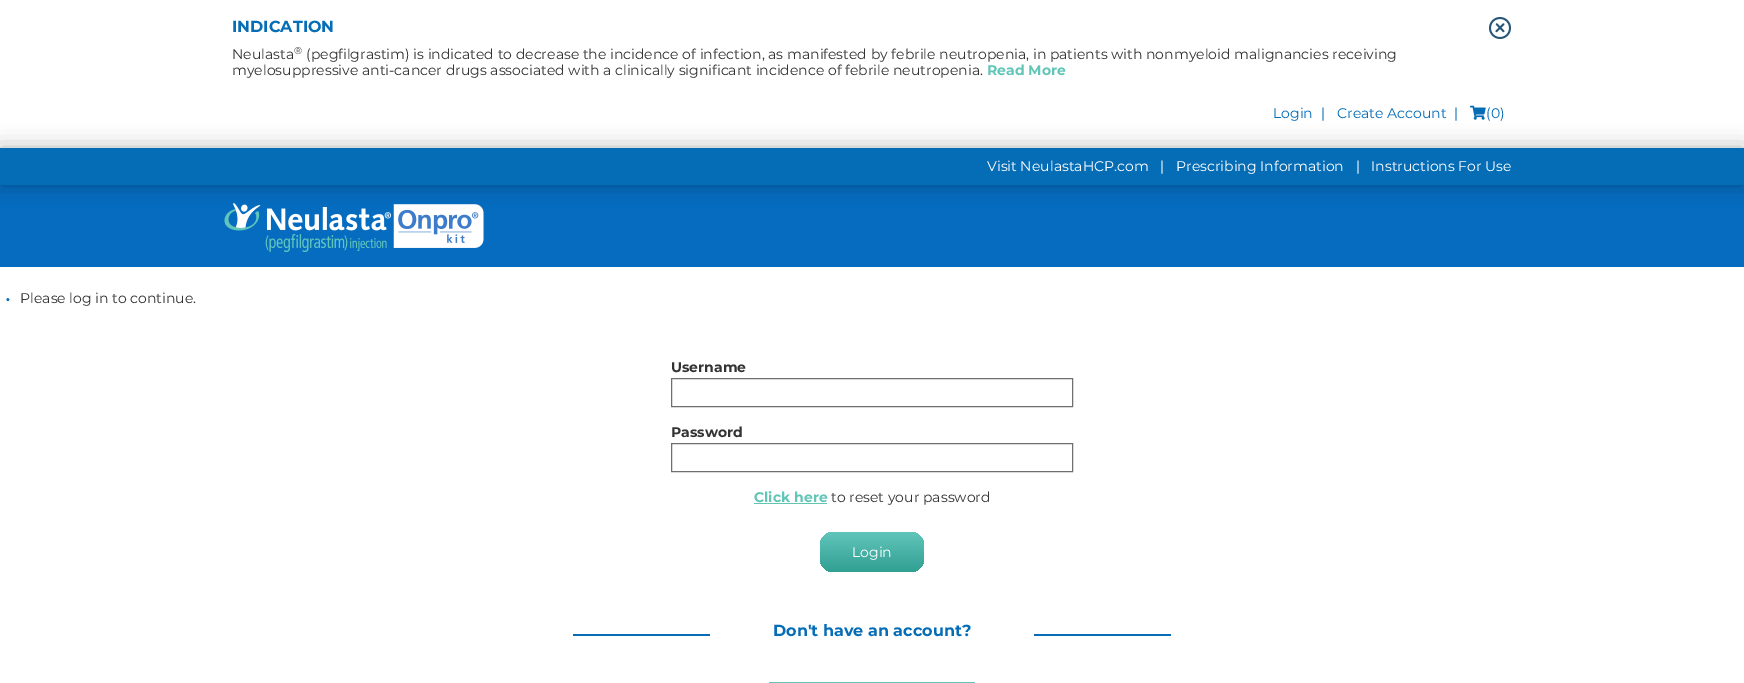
%!PS
<< /PageSize [1744 683] /PageUsesTransparency true >> setpagedevice
/alpha { dup .setfillconstantalpha .setstrokeconstantalpha } def
/roundrect { 5 dict begin { /r /h /w /y /x } { exch def } forall
  x r add y moveto x w add y 2 copy h add r arct x w add y h add x 1 index r arct
  x y h add x y r arct x y 2 copy exch w add exch r arct closepath end } def
/shadow { 12 dict begin { /a /b /q /h /w /y /x } { exch def } forall gsave /was 0 def
  9 -2 -9 { dup b mul 4 div /e exch def 1 sub .425 mul 2.718 exch exp 1 add a .99 .min exch div /now exch def
    1 1 now sub 1 was sub div sub alpha /was now def
    w h .min e 2 mul add 0 gt { x e sub y e sub w e 2 mul add h e 2 mul add
      q e add b .6 mul add w h .min 2 div e add .min 0 .max roundrect fill } if } for grestore end } def
/picture { 5 dict begin { /h /w /y /x /name } { exch def } forall
  gsave x y translate w h scale
  w h 8 [w 0 0 h 0 0] name (r) file false 3 colorimage grestore end } def
0 .pushpdf14devicefilter
0 683 translate 1 -1 scale
4 setmiterlimit
1 setgray
0 0 1744 683 rectfill
/Montserrat-Bold [16 0 0 -16 0 0] selectfont
0.02 0.424 0.714 setrgbcolor
232 32 moveto (INDICATION) show
(img1.rgb) 1489 17 22 22 picture
/Montserrat-Regular [14 0 0 -14 0 0] selectfont
0.2 setgray
232 59 moveto (Neulasta) show
/Montserrat-Regular [10 0 0 -10 0 0] selectfont
294 54 moveto (®) show
/Montserrat-Regular [14 0 0 -14 0 0] selectfont
306 59 moveto (\(pegfilgrastim\) is indicated to decrease the incidence of infection, as manifested by febrile neutropenia, in patients with nonmyeloid malignancies receiving) show
232 75 moveto (myelosuppressive anti-cancer drugs associated with a clinically significant incidence of febrile neutropenia.) show
/Montserrat-Bold [14 0 0 -14 0 0] selectfont
0.38 0.773 0.718 setrgbcolor
987 75 moveto (Read More) show
0.02 0.424 0.753 setrgbcolor
0 185 1744 82 rectfill
(img3.rgb) 224 203 260 49 picture
0 setgray
0 148 1744 37 0 11 0.3 shadow
/Montserrat-Regular [14 0 0 -14 0 0] selectfont
0.02 0.424 0.714 setrgbcolor
1273 118 moveto (Login) show
1321 118 moveto (|) show
1337 118 moveto (Create Account) show
1454 118 moveto (|) show
(img2.rgb) 1470 105 16 15 picture
1486 118 moveto (\(0\)) show
0 148 1744 37 rectfill
1 setgray
987 171 moveto (Visit NeulastaHCP.com) show
1160 171 moveto (|) show
1176 171 moveto (Prescribing Information) show
1356 171 moveto (|) show
1371 171 moveto (Instructions For Use) show
/Montserrat-Regular [20 0 0 -20 0 0] selectfont
0.02 0.424 0.714 setrgbcolor
5 305 moveto (•) show
/Montserrat-Regular [14 0 0 -14 0 0] selectfont
0.2 setgray
20 303 moveto (Please log in to continue.) show
/Montserrat-Bold [14 0 0 -14 0 0] selectfont
671 372 moveto (Username) show
0.435 0.439 0.431 setrgbcolor
671.5 378.5 401 28 rectstroke
0.2 setgray
671 437 moveto (Password) show
0.435 0.439 0.431 setrgbcolor
671.5 443.5 401 28 rectstroke
0.38 0.773 0.718 setrgbcolor
754 502 moveto (Click here) show
0.38 0.773 0.698 setrgbcolor
754 503 73 1 rectfill
/Montserrat-Regular [14 0 0 -14 0 0] selectfont
0.2 setgray
831 502 moveto (to reset your password) show
gsave 820 532 104 40 14 roundrect clip newpath
<< /ShadingType 2 /ColorSpace /DeviceRGB /Coords [872 532 872 572] /Extend [true true] /Function << /FunctionType 2 /Domain [0 1] /C0 [0.38 0.773 0.729] /C1 [0.192 0.624 0.576] /N 1 >> >> shfill grestore
1 setgray
852 557 moveto (Login) show
0.02 0.424 0.714 setrgbcolor
573 634 137 2 rectfill
/Montserrat-Bold [16 0 0 -16 0 0] selectfont
773 636 moveto (Don't have an account?) show
1034 634 137 2 rectfill
gsave 761 682 222 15 14 roundrect clip newpath
<< /ShadingType 2 /ColorSpace /DeviceRGB /Coords [872 682 872 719] /Extend [true true] /Function << /FunctionType 2 /Domain [0 1] /C0 [0.38 0.773 0.729] /C1 [0.192 0.624 0.576] /N 1 >> >> shfill grestore
.poppdf14devicefilter showpage
